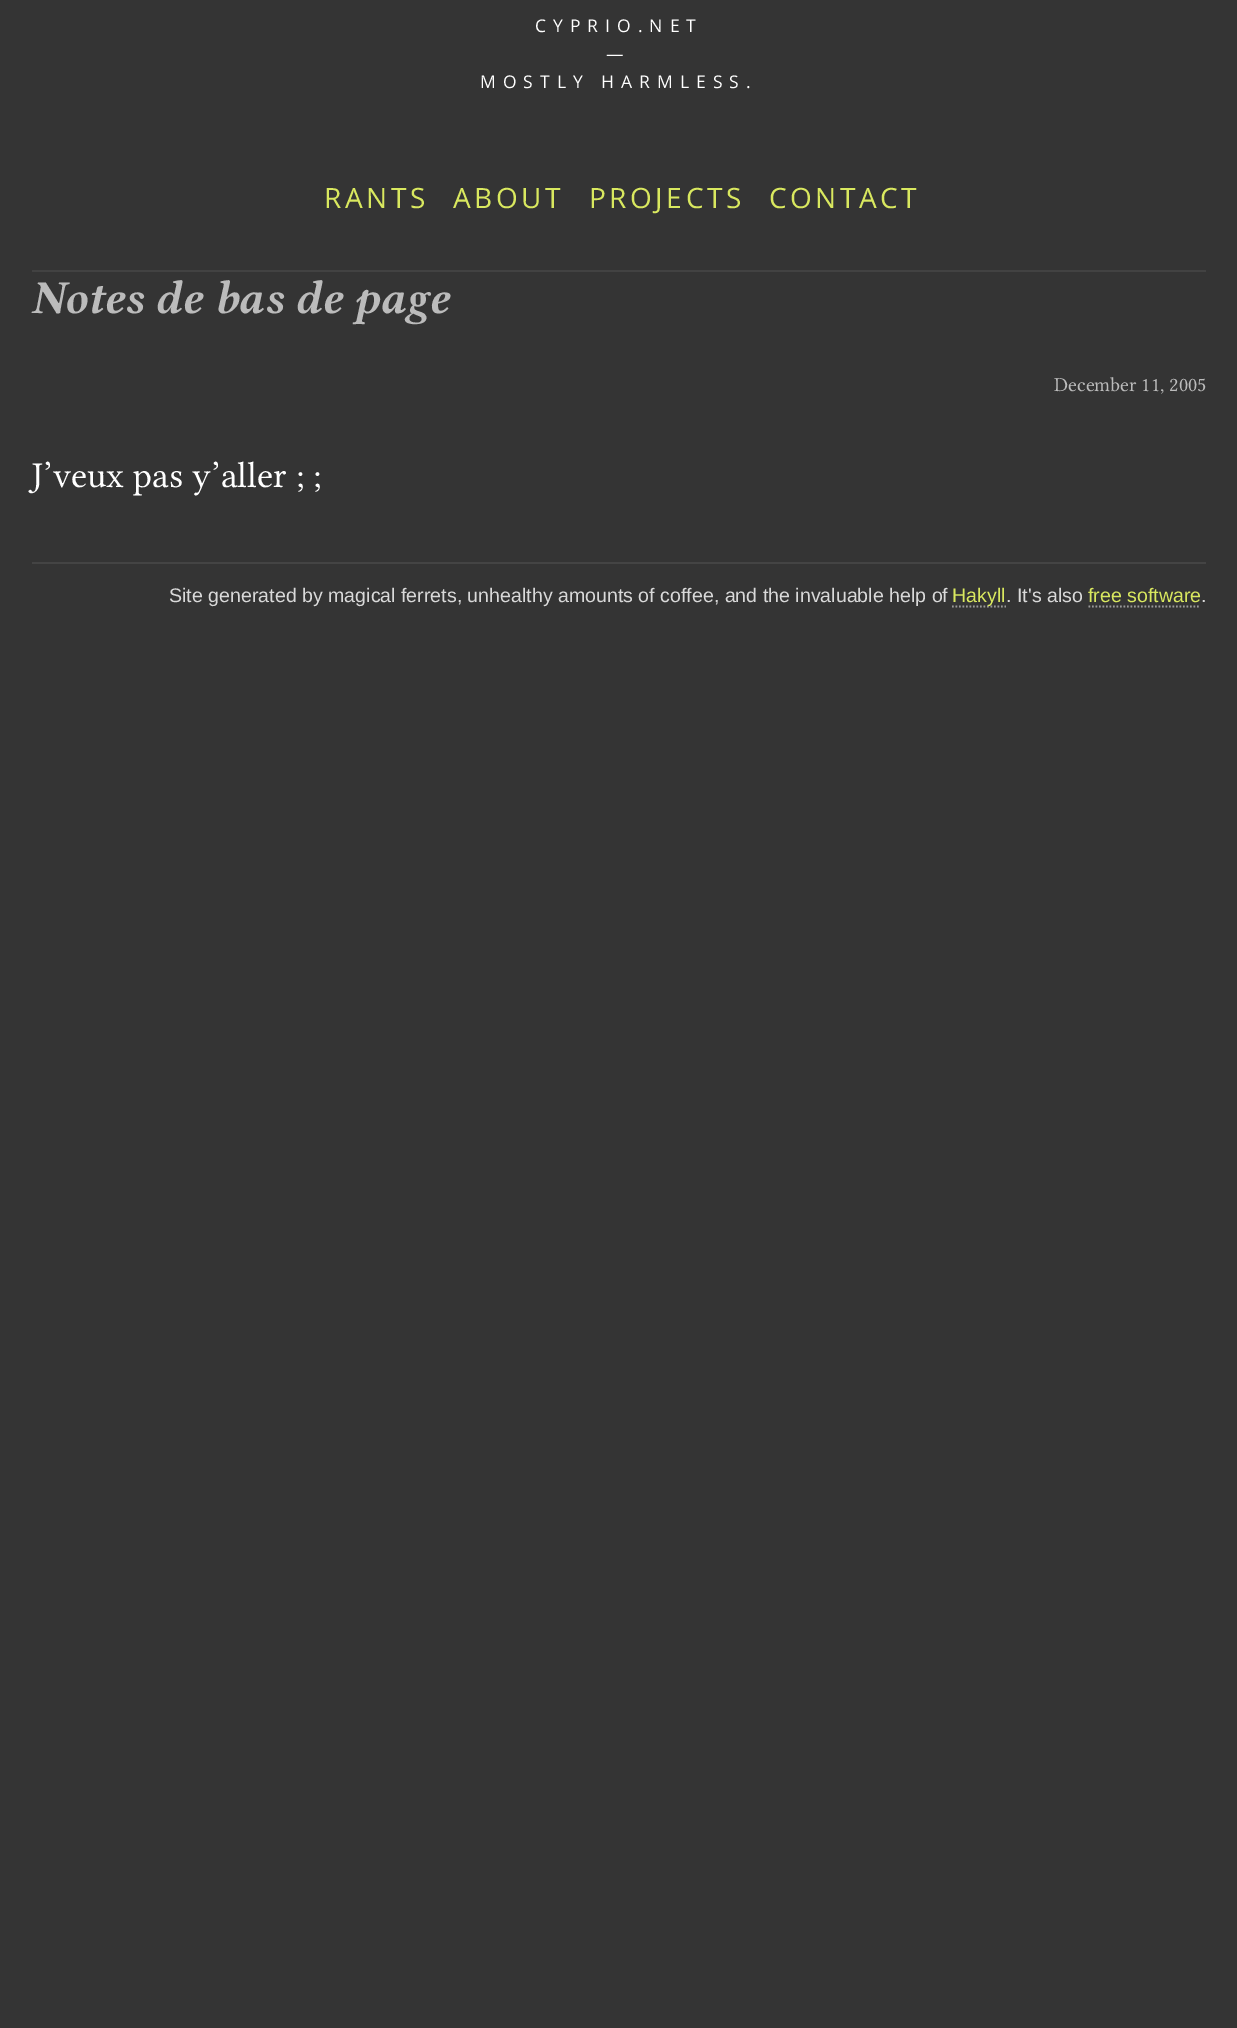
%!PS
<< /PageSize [1237 2028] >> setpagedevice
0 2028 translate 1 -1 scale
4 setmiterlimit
0.204 setgray
0 0 1237 2028 rectfill
/OpenSans-Regular [17.5 0 0 -17.5 0 0] selectfont
1 setgray
535 32 moveto 7 0 (CYPRIO.NET) ashow
606 60 moveto 7 0 (—) ashow
480 88 moveto 7 0 (MOSTLY HARMLESS.) ashow
/OpenSans-Regular [28 0 0 -28 0 0] selectfont
0.851 0.91 0.373 setrgbcolor
324 208 moveto 3.5 0 (RANTS) ashow
453 208 moveto 3.5 0 (ABOUT) ashow
589 208 moveto 3.5 0 (PROJECTS) ashow
769 208 moveto 3.5 0 (CONTACT) ashow
0.259 setgray
32 270 1174 2 rectfill
/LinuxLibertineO-BoldItalic [47.25 0 0 -47.25 0 0] selectfont
0.733 setgray
31 313 moveto (Notes de bas de page) show
/LinuxLibertineO-Regular [20 0 0 -20 0 0] selectfont
1054 391 moveto (December 11, 2005) show
/LinuxLibertineO-Regular [36.5 0 0 -36.5 0 0] selectfont
1 setgray
31 487 moveto (J’veux pas y’aller ; ;) show
0.267 setgray
32 562 1174 2 rectfill
/LiberationSans-Regular [19.6 0 0 -19.6 0 0] selectfont
0.851 setgray
169 602 moveto (Site generated by magical ferrets, unhealthy amounts of coffee, and the invaluable help of) show
0.6 setgray
1.8 setlinewidth
[1.75 1.75] 0 setdash
newpath 952 606.5 moveto 1006 606.5 lineto stroke
0.851 0.91 0.373 setrgbcolor
952 602 moveto (Hakyll) show
0.851 setgray
1006 602 moveto (. It's also) show
0.851 0.91 0.373 setrgbcolor
1088 602 moveto (free software) show
0.6 setgray
newpath 1088.5 606.5 moveto 1200.5 606.5 lineto stroke
0.851 setgray
1201 602 moveto (.) show
showpage
